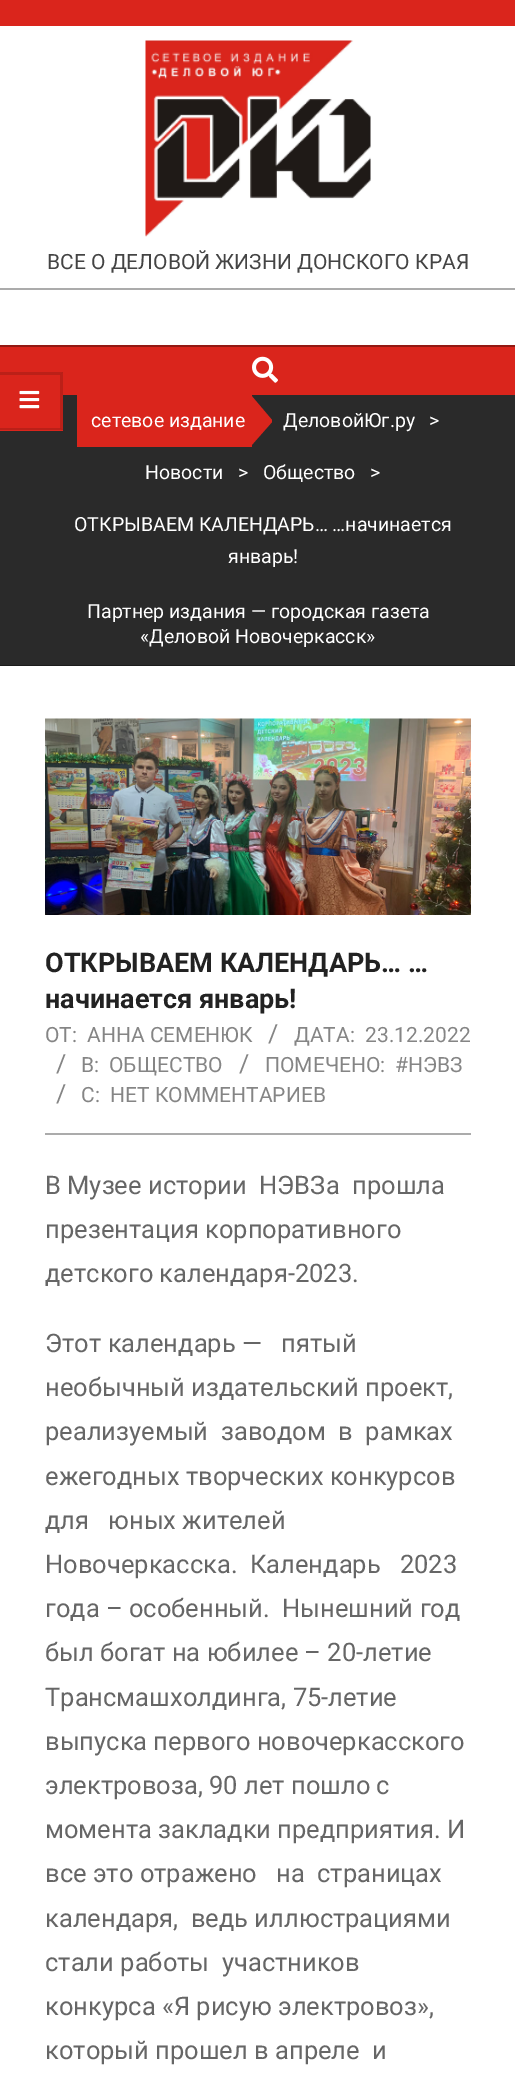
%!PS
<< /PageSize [515 2079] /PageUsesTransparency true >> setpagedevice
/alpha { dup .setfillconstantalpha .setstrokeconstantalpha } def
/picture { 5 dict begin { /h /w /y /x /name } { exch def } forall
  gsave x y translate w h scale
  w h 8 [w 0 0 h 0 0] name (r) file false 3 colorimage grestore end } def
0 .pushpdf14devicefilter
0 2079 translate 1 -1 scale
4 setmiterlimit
1 setgray
0 0 515 2079 rectfill
0.855 0.145 0.11 setrgbcolor
0 0 515 26 rectfill
(img1.rgb) 145 40 226 197 picture
/Roboto-Regular [21 0 0 -21 0 0] selectfont
0.267 setgray
47 269 moveto (ВСЕ О ДЕЛОВОЙ ЖИЗНИ ДОНСКОГО КРАЯ) show
0.671 setgray
0 288 515 2 rectfill
0.855 0.145 0.11 setrgbcolor
0 347 515 48 rectfill
0.573 0.098 0.075 setrgbcolor
0 345 515 2 rectfill
(img2.rgb) 252 356 26 27 picture
0.165 setgray
0 395 515 270 rectfill
0.855 0.145 0.11 setrgbcolor
0 395 63 36 rectfill
0.733 0.125 0.094 setrgbcolor
newpath 0 372 moveto 63 372 lineto 60 375 lineto 0 375 lineto closepath fill
0.14 alpha
0 setgray
newpath 63 372 moveto 63 430 lineto 60 428 lineto 60 375 lineto closepath fill
newpath 63 430 moveto 0 430 lineto 0 428 lineto 60 428 lineto closepath fill
1 alpha
(img3.rgb) 19 390 21 19 picture
0.11 setgray
0 665 515 1 rectfill
0.855 0.145 0.11 setrgbcolor
77 395 175 52 rectfill
/Roboto-Regular [19.5 0 0 -19.5 0 0] selectfont
1 setgray
91 427 moveto (сетевое издание) show
0.855 0.145 0.11 setrgbcolor
newpath 250 447 moveto 250 394 lineto 272 420 lineto 272 422 lineto closepath fill
1 setgray
283 427 moveto (ДеловойЮг.ру) show
429 427 moveto (>) show
145 479 moveto (Новости) show
238 479 moveto (>) show
263 479 moveto (Общество) show
370 479 moveto (>) show
74 531 moveto (ОТКРЫВАЕМ КАЛЕНДАРЬ… …начинается) show
228 563 moveto (январь!) show
87 618 moveto (Партнер издания — городская газета) show
140 643 moveto («Деловой Новочеркасск») show
(img4.rgb) 45 718 426 197 picture
0.671 setgray
45 1133 426 2 rectfill
/Roboto-Bold [27 0 0 -27 0 0] selectfont
0.133 setgray
45 972 moveto (ОТКРЫВАЕМ КАЛЕНДАРЬ… …) show
45 1008 moveto (начинается январь!) show
/Roboto-Regular [21 0 0 -21 0 0] selectfont
0.522 setgray
45 1042 moveto (ОТ:) show
87 1042 moveto (АННА СЕМЕНЮК) show
/Roboto-Regular [25 0 0 -25 0 0] selectfont
268 1042 moveto (/) show
/Roboto-Regular [21 0 0 -21 0 0] selectfont
294 1042 moveto (ДАТА:) show
365 1042 moveto (23.12.2022) show
/Roboto-Regular [25 0 0 -25 0 0] selectfont
56 1072 moveto (/) show
/Roboto-Regular [21 0 0 -21 0 0] selectfont
81 1072 moveto (В:) show
109 1072 moveto (ОБЩЕСТВО) show
/Roboto-Regular [25 0 0 -25 0 0] selectfont
239 1072 moveto (/) show
/Roboto-Regular [21 0 0 -21 0 0] selectfont
265 1072 moveto (ПОМЕЧЕНО:) show
395 1072 moveto (#НЭВЗ) show
/Roboto-Regular [25 0 0 -25 0 0] selectfont
56 1102 moveto (/) show
/Roboto-Regular [21 0 0 -21 0 0] selectfont
81 1102 moveto (С:) show
110 1102 moveto (НЕТ КОММЕНТАРИЕВ) show
/Roboto-Regular [25.5 0 0 -25.5 0 0] selectfont
0.4 setgray
45 1194 moveto (В Музее истории  НЭВЗа  прошла) show
45 1238 moveto (презентация корпоративного) show
45 1282 moveto (детского календаря-2023.) show
45 1352 moveto (Этот календарь —   пятый) show
45 1396 moveto (необычный издательский проект,) show
45 1440 moveto (реализуемый  заводом  в  рамках) show
45 1485 moveto (ежегодных творческих конкурсов) show
45 1529 moveto (для   юных жителей) show
45 1573 moveto (Новочеркасска.  Календарь   2023) show
45 1617 moveto (года – особенный.  Нынешний год) show
45 1661 moveto (был богат на юбилее – 20-летие) show
45 1706 moveto (Трансмашхолдинга, 75-летие) show
45 1750 moveto (выпуска первого новочеркасского) show
45 1794 moveto (электровоза, 90 лет пошло с) show
45 1838 moveto (момента закладки предприятия. И) show
45 1882 moveto (все это отражено   на  страницах) show
45 1927 moveto (календаря,  ведь иллюстрациями) show
45 1971 moveto (стали работы  участников) show
45 2015 moveto (конкурса «Я рисую электровоз»,) show
45 2059 moveto (который прошел в апреле  и) show
.poppdf14devicefilter showpage
